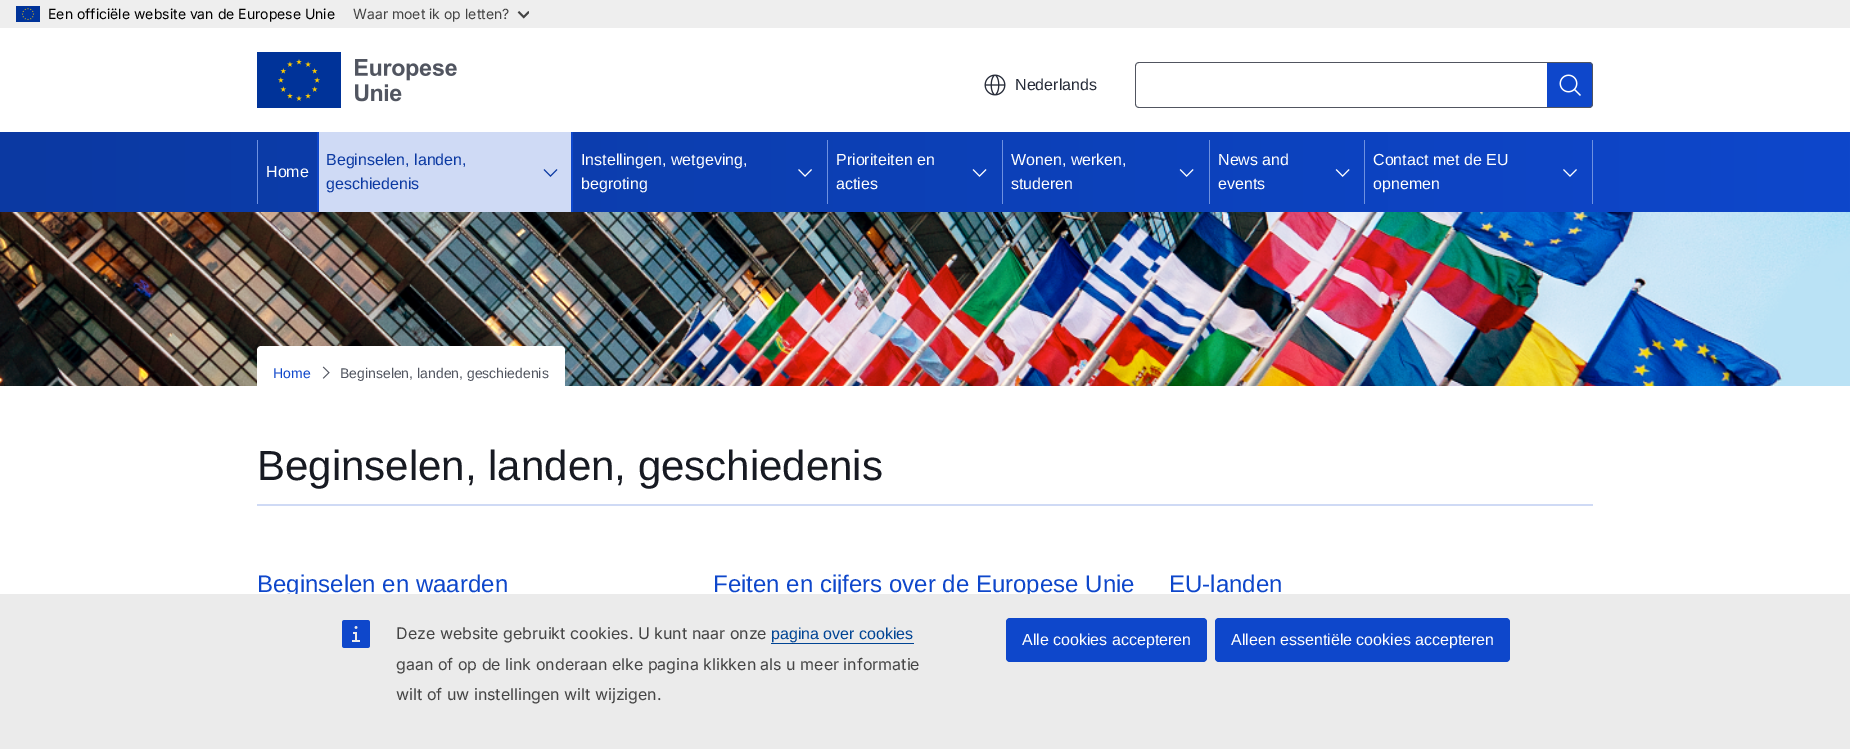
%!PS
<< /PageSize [1850 749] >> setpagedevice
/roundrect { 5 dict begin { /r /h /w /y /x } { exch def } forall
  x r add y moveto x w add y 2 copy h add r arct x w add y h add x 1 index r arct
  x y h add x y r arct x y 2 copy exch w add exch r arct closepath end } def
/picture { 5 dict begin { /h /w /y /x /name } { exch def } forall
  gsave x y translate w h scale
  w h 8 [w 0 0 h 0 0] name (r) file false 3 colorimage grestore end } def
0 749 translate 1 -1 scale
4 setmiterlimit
1 setgray
0 0 1850 749 rectfill
0.933 setgray
0 0 1850 28 rectfill
(img1.rgb) 16 6 24 16 picture
/Inter-Regular [14 0 0 -14 0 0] selectfont
0 setgray
48 19 moveto (Een officiële website van de Europese Unie) show
0.267 setgray
353 19 moveto (Waar moet ik op letten?) show
(img2.rgb) 517 11 12 8 picture
(img3.rgb) 257 52 200 56 picture
(img4.rgb) 984 74 22 22 picture
/LiberationSans-Regular [16 0 0 -16 0 0] selectfont
0.149 0.169 0.22 setrgbcolor
1015 90 moveto (Nederlands) show
0.318 0.333 0.376 setrgbcolor
newpath 1139 62 moveto 1547 62 lineto 1547 108 lineto 1139 108 lineto 1137 108 1135 106 1135 104 curveto 1135 66 lineto 1135 64 1137 62 1139 62 curveto closepath 1139 63 moveto 1547 63 lineto 1547 107 lineto 1139 107 lineto 1137 107 1136 106 1136 104 curveto 1136 66 lineto 1136 64 1137 63 1139 63 curveto closepath eofill
0.055 0.278 0.796 setrgbcolor
newpath 1547 62 moveto 1589 62 lineto 1591 62 1593 64 1593 66 curveto 1593 104 lineto 1593 106 1591 108 1589 108 curveto 1547 108 lineto closepath fill
0.318 0.333 0.376 setrgbcolor
newpath 1547 62 moveto 1589 62 lineto 1591 62 1593 64 1593 66 curveto 1593 104 lineto 1593 106 1591 108 1589 108 curveto 1547 108 lineto closepath 1547 63 moveto 1589 63 lineto 1591 63 1592 64 1592 66 curveto 1592 104 lineto 1592 106 1591 107 1589 107 curveto 1547 107 lineto closepath eofill
(img5.rgb) 1559 74 22 22 picture
gsave newpath 0 132 moveto 1850 132 lineto 1850 212 lineto 0 212 lineto closepath clip newpath
<< /ShadingType 2 /ColorSpace /DeviceRGB /Coords [0 172 1850 172] /Extend [true true] /Function << /FunctionType 2 /Domain [0 1] /C0 [0.043 0.224 0.635] /C1 [0.055 0.278 0.796] /N 1 >> >> shfill grestore
0.431 0.569 0.878 setrgbcolor
257 140 1 64 rectfill
1 setgray
266 177 moveto (Home) show
0.812 0.855 0.961 setrgbcolor
319 132 252 80 rectfill
0.055 0.278 0.796 setrgbcolor
571 132 2 80 rectfill
317 132 2 80 rectfill
0.043 0.224 0.635 setrgbcolor
326 165 moveto (Beginselen, landen,) show
326 189 moveto (geschiedenis) show
(img6.rgb) 543 169 15 8 picture
1 setgray
581 165 moveto (Instellingen, wetgeving,) show
581 189 moveto (begroting) show
(img7.rgb) 798 169 14 8 picture
0.431 0.569 0.878 setrgbcolor
827 140 1 64 rectfill
1 setgray
836 165 moveto (Prioriteiten en) show
836 189 moveto (acties) show
(img8.rgb) 972 169 15 8 picture
0.431 0.569 0.878 setrgbcolor
1002 140 1 64 rectfill
1 setgray
1011 165 moveto (Wonen, werken,) show
1011 189 moveto (studeren) show
(img9.rgb) 1179 169 15 8 picture
0.431 0.569 0.878 setrgbcolor
1209 140 1 64 rectfill
1 setgray
1218 165 moveto (News and) show
1218 189 moveto (events) show
(img10.rgb) 1335 169 15 8 picture
0.431 0.569 0.878 setrgbcolor
1364 140 1 64 rectfill
1 setgray
1373 165 moveto (Contact met de EU) show
1373 189 moveto (opnemen) show
(img11.rgb) 1563 169 14 8 picture
0.431 0.569 0.878 setrgbcolor
1592 140 1 64 rectfill
(img12.rgb) 0 212 1850 174 picture
1 setgray
newpath 261 346 moveto 561 346 lineto 563 346 565 348 565 350 curveto 565 400 lineto 257 400 lineto 257 350 lineto 257 348 259 346 261 346 curveto closepath fill
/LiberationSans-Regular [14 0 0 -14 0 0] selectfont
0.055 0.278 0.796 setrgbcolor
273 378 moveto (Home) show
(img13.rgb) 322 366 8 13 picture
0.318 0.333 0.376 setrgbcolor
340 378 moveto (Beginselen, landen, geschiedenis) show
0.812 0.855 0.961 setrgbcolor
257 504 1336 2 rectfill
/LiberationSans-Regular [42 0 0 -42 0 0] selectfont
0.09 0.102 0.133 setrgbcolor
257 480 moveto (Beginselen, landen, geschiedenis) show
/LiberationSans-Regular [24 0 0 -24 0 0] selectfont
0.055 0.278 0.796 setrgbcolor
257 592 moveto (Beginselen en waarden) show
713 592 moveto (Feiten en cijfers over de Europese Unie) show
1169 592 moveto (EU-landen) show
0.922 setgray
0 594 1850 155 rectfill
(img14.rgb) 342 620 28 28 picture
/Inter-Regular [16 0 0 -16 0 0] selectfont
0.267 setgray
396 639 moveto (Deze website gebruikt cookies. U kunt naar onze) show
/LiberationSans-Regular [16 0 0 -16 0 0] selectfont
0 0.267 0.58 setrgbcolor
771 639 moveto (pagina over cookies) show
771 643 143 1 rectfill
/Inter-Regular [16 0 0 -16 0 0] selectfont
0.267 setgray
396 670 moveto (gaan of op de link onderaan elke pagina klikken als u meer informatie) show
396 700 moveto (wilt of uw instellingen wilt wijzigen.) show
0.055 0.278 0.796 setrgbcolor
1006 618 201 44 4 roundrect fill
/LiberationSans-Regular [16 0 0 -16 0 0] selectfont
1 setgray
1022 645 moveto (Alle cookies accepteren) show
0.055 0.278 0.796 setrgbcolor
1215 618 295 44 4 roundrect fill
1 setgray
1231 645 moveto (Alleen essentiële cookies accepteren) show
showpage
